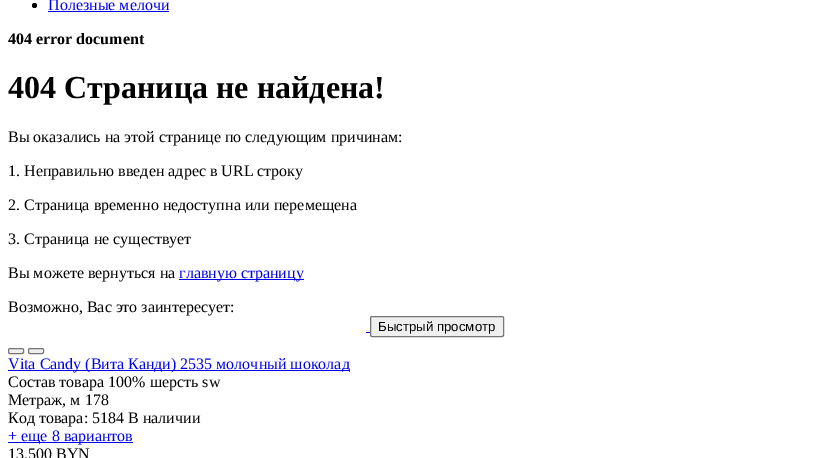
%!PS
<< /PageSize [828 458] >> setpagedevice
/roundrect { 5 dict begin { /r /h /w /y /x } { exch def } forall
  x r add y moveto x w add y 2 copy h add r arct x w add y h add x 1 index r arct
  x y h add x y r arct x y 2 copy exch w add exch r arct closepath end } def
0 458 translate 1 -1 scale
4 setmiterlimit
1 setgray
0 0 828 458 rectfill
0 setgray
newpath 34.5 5.5 2.5 0 360 arc closepath fill
/LiberationSerif-Regular [16 0 0 -16 0 0] selectfont
0 0 0.933 setrgbcolor
48 10 moveto (Полезные мелочи) show
48 11 121 1 rectfill
/LiberationSerif-Bold [16 0 0 -16 0 0] selectfont
0 setgray
8 44 moveto (404 error document) show
/LiberationSerif-Bold [32 0 0 -32 0 0] selectfont
8 98 moveto (404 Страница не найдена!) show
/LiberationSerif-Regular [16 0 0 -16 0 0] selectfont
8 142 moveto (Вы оказались на этой странице по следующим причинам:) show
8 176 moveto (1. Неправильно введен адрес в URL строку) show
8 210 moveto (2. Страница временно недоступна или перемещена) show
8 244 moveto (3. Страница не существует) show
8 278 moveto (Вы можете вернуться на) show
0 0 0.933 setrgbcolor
179 279 125 1 rectfill
179 278 moveto (главную страницу) show
0 setgray
8 312 moveto (Возможно, Вас это заинтересует:) show
0 0 0.933 setrgbcolor
366 332 4 1 rectfill
0.937 setgray
370.5 316.5 133 20 1.5 roundrect gsave fill grestore
0.463 setgray
stroke
/LiberationSans-Regular [13.25 0 0 -13.25 0 0] selectfont
0 setgray
378 331 moveto (Быстрый просмотр) show
0.937 setgray
8.5 348.5 15 5 1.5 roundrect gsave fill grestore
0.463 setgray
stroke
0.937 setgray
28.5 348.5 15 5 1.5 roundrect gsave fill grestore
0.463 setgray
stroke
0 0 0.933 setrgbcolor
8 370 342 1 rectfill
/LiberationSerif-Regular [16 0 0 -16 0 0] selectfont
8 369 moveto (Vita Candy \(Вита Канди\) 2535 молочный шоколад) show
0 setgray
8 387 moveto (Состав товара 100% шерсть sw) show
8 405 moveto (Метраж, м 178) show
8 423 moveto (Код товара: 5184 В наличии) show
0 0 0.933 setrgbcolor
8 442 125 1 rectfill
8 441 moveto (+ еще 8 вариантов) show
0 setgray
8 459 moveto (13.500 BYN) show
showpage
